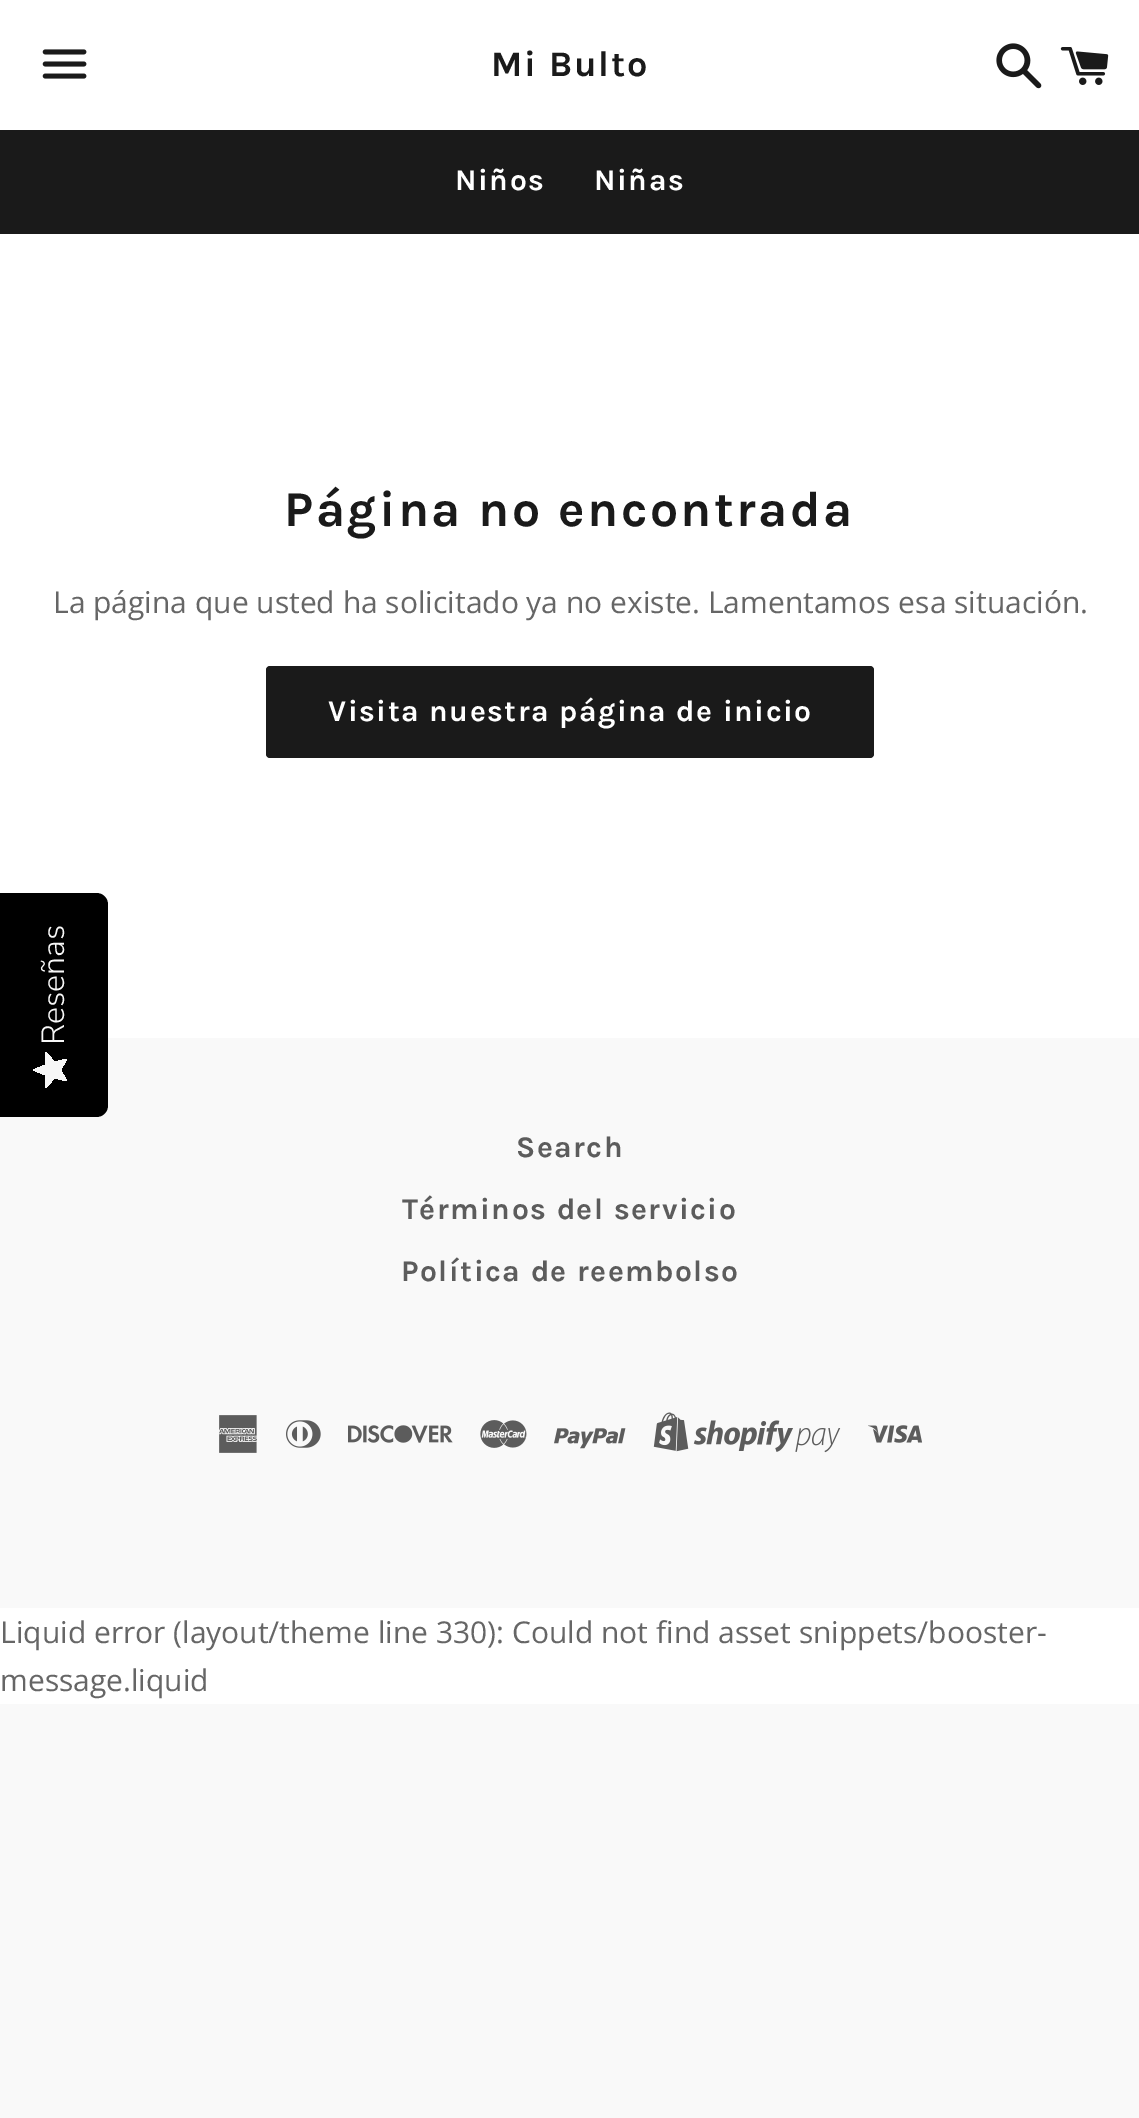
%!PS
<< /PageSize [1139 2118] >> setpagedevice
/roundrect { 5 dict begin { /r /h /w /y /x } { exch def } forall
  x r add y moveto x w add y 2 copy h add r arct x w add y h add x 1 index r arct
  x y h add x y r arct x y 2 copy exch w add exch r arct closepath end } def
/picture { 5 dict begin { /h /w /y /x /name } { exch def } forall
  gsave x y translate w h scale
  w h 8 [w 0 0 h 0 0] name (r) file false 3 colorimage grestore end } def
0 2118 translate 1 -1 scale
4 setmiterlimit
0.976 setgray
0 0 1139 2118 rectfill
1 setgray
0 0 1139 1704 rectfill
0.976 setgray
0 1038 1139 570 rectfill
0 setgray
newpath 0 1117 moveto 0 893 lineto 96 893 lineto 103 893 108 898 108 905 curveto 108 1105 lineto 108 1112 103 1117 96 1117 curveto closepath fill
/NunitoSans-Light [32 0 0 -32 0 0] selectfont
0.969 setgray
gsave 64 1045 translate -90 rotate 0 0 moveto (Reseñas) show grestore
gsave newpath 60.5 1070 moveto 67 1059 lineto 54.5 1062 lineto 46 1052 lineto 45 1065 lineto 33 1070 lineto 45 1075 lineto 46 1088 lineto 54.5 1078 lineto 67 1081 lineto closepath clip newpath
<< /ShadingType 2 /ColorSpace /DeviceRGB /Coords [33 1088 33 1052] /Extend [true true] /Function << /FunctionType 2 /Domain [0 1] /C0 [0.969 0.969 0.969] /C1 [0.969 0.969 0.969] /N 1 >> >> shfill grestore
(img1.rgb) 42 49 45 30 picture
/Karla-Bold [36 0 0 -36 0 0] selectfont
0.102 setgray
491 76 moveto 1.75 0 (Mi Bulto) ashow
(img2.rgb) 996 43 46 46 picture
(img3.rgb) 1060 47 49 38 picture
0 130 1139 104 rectfill
/Karla-Bold [30 0 0 -30 0 0] selectfont
1 setgray
455 190 moveto 1.5 0 (Niños) ashow
594 190 moveto 1.5 0 (Niñas) ashow
/Karla-Bold [50 0 0 -50 0 0] selectfont
0.102 setgray
284 526 moveto 2.5 0 (Página no encontrada) ashow
/OpenSans-Regular [30 0 0 -30 0 0] selectfont
0.4 setgray
53 613 moveto (La página que usted ha solicitado ya no existe. Lamentamos esa situación.) show
0.102 setgray
266 666 608 92 4 roundrect fill
/Karla-Bold [30 0 0 -30 0 0] selectfont
1 setgray
328 721 moveto 1.5 0 (Visita nuestra página de inicio) ashow
0.361 setgray
516 1157 moveto 1.5 0 (Search) ashow
402 1219 moveto 1.5 0 (Términos del servicio) ashow
401 1281 moveto 1.5 0 (Política de reembolso) ashow
(img4.rgb) 219 1415 38 38 picture
(img5.rgb) 286 1420 35 28 picture
(img6.rgb) 348 1425 105 18 picture
(img7.rgb) 480 1420 47 28 picture
(img8.rgb) 554 1428 72 21 picture
(img9.rgb) 653 1412 188 41 picture
(img10.rgb) 868 1425 55 18 picture
/OpenSans-Regular [30 0 0 -30 0 0] selectfont
0.4 setgray
0 1643 moveto (Liquid error \(layout/theme line 330\): Could not find asset snippets/booster-) show
0 1691 moveto (message.liquid) show
showpage
